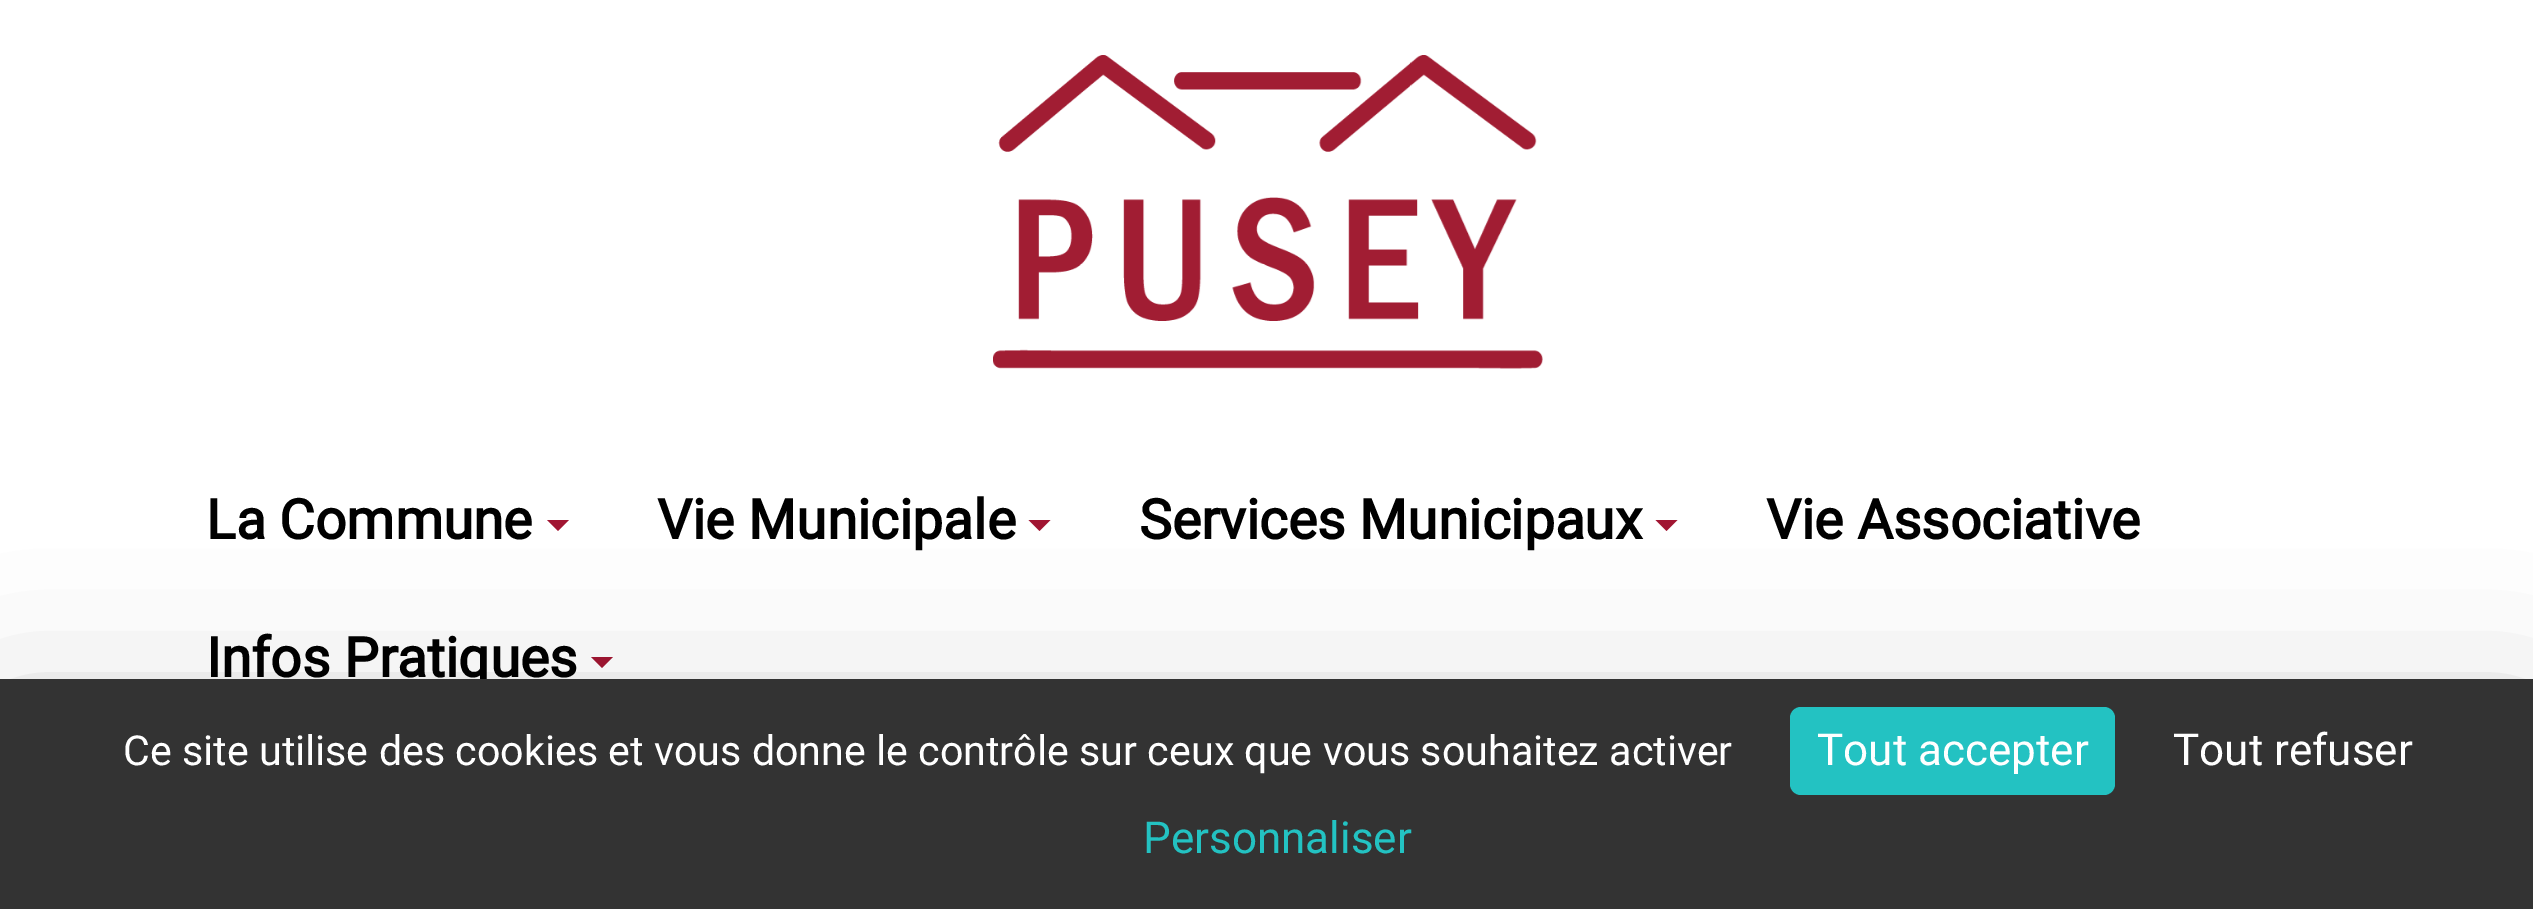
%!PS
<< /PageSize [2533 909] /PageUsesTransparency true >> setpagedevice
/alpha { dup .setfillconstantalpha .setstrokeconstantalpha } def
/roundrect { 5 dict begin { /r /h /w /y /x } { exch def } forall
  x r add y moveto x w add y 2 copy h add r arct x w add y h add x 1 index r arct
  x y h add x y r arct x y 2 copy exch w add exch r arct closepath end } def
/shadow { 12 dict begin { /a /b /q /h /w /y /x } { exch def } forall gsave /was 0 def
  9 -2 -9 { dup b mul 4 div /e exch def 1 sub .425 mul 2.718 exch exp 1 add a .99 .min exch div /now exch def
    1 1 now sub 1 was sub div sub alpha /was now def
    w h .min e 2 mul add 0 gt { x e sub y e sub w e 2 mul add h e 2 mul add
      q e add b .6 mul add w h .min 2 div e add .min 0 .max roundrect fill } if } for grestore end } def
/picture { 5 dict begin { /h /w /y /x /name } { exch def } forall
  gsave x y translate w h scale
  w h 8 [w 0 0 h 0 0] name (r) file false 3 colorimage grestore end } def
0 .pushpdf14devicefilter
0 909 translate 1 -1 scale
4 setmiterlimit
1 setgray
0 0 2533 909 rectfill
(img1.rgb) 993 55 550 314 picture
/Roboto-Bold [55 0 0 -55 0 0] selectfont
0 setgray
206 539 moveto (La Commune) show
0.631 0.082 0.196 setrgbcolor
newpath 547 520 moveto 569 520 lineto 558 531 lineto closepath fill
0 setgray
657 539 moveto (Vie Municipale) show
0.631 0.082 0.196 setrgbcolor
newpath 1028.5 520 moveto 1050.5 520 lineto 1039.5 531 lineto closepath fill
0 setgray
1139 539 moveto (Services Municipaux) show
0.631 0.082 0.196 setrgbcolor
newpath 1655.5 520 moveto 1677.5 520 lineto 1666.5 531 lineto closepath fill
0 setgray
1766 539 moveto (Vie Associative) show
206 677 moveto (Infos Pratiques) show
0.631 0.082 0.196 setrgbcolor
newpath 591 657 moveto 613 657 lineto 602 668 lineto closepath fill
0 setgray
0 734 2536 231 0 82.5 0.25 shadow
0.2 setgray
0 679 2533 230 rectfill
/Roboto-Regular [41.25 0 0 -41.25 0 0] selectfont
1 setgray
123 765 moveto (Ce site utilise des cookies et vous donne le contrôle sur ceux que vous souhaitez activer) show
0.137 0.761 0.761 setrgbcolor
1790 707 325 88 11 roundrect fill
/Roboto-Regular [44 0 0 -44 0 0] selectfont
1 setgray
1817 765 moveto (Tout accepter) show
2173 765 moveto (Tout refuser) show
0.137 0.761 0.761 setrgbcolor
1143 853 moveto (Personnaliser) show
.poppdf14devicefilter showpage
